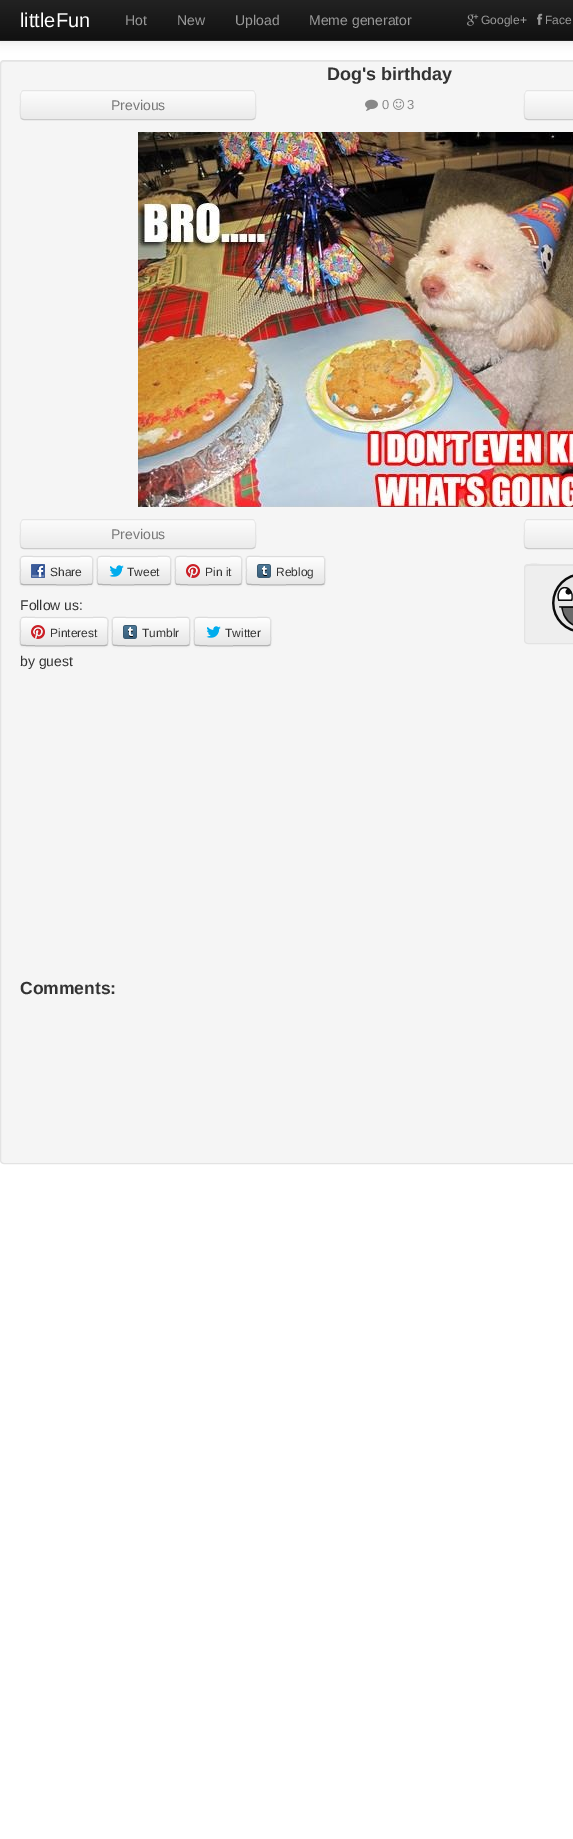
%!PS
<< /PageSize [573 1839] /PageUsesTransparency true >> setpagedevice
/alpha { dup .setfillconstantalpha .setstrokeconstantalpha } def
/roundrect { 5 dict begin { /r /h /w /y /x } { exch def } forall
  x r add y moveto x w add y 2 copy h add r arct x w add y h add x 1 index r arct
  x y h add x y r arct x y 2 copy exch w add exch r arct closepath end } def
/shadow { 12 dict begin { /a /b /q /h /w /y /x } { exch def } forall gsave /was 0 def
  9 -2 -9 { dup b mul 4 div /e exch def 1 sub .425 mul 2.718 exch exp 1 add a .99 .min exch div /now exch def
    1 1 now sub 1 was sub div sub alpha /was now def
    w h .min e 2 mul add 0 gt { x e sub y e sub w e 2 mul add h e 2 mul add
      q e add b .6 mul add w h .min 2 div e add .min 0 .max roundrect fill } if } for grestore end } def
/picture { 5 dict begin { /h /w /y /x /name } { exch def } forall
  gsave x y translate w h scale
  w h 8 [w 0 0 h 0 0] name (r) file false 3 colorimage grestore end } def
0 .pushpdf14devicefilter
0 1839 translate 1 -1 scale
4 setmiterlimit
1 setgray
0 0 573 1839 rectfill
0 setgray
0 1 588 41 0 5 0.1 shadow
gsave newpath 0 0 moveto 573 0 lineto 573 40 lineto 0 40 lineto closepath clip newpath
<< /ShadingType 2 /ColorSpace /DeviceRGB /Coords [450 0 450 40] /Extend [true true] /Function << /FunctionType 2 /Domain [0 1] /C0 [0.133 0.133 0.133] /C1 [0.067 0.067 0.067] /N 1 >> >> shfill grestore
0.145 setgray
0 40 573 1 rectfill
/LiberationSans-Regular [20 0 0 -20 0 0] selectfont
1 setgray
20 27 moveto (littleFun) show
/LiberationSans-Regular [14 0 0 -14 0 0] selectfont
0.6 setgray
125 25 moveto (Hot) show
177 25 moveto (New) show
235 25 moveto (Upload) show
309 25 moveto (Meme generator) show
(img1.rgb) 467 14 12 12 picture
/LiberationSans-Regular [12 0 0 -12 0 0] selectfont
481 24 moveto (Google+) show
(img2.rgb) 537 13 6 12 picture
545 24 moveto (Face) show
0.961 setgray
0 60 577 1104 4 roundrect fill
0.914 setgray
newpath 4 62 moveto 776 62 lineto 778 62 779 63 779 65 curveto 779 63 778 61 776 61 curveto 4 61 lineto 2 61 1 63 1 65 curveto 1 63 2 62 4 62 curveto closepath fill
0.89 setgray
0.5 60.5 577 1103 3.5 roundrect stroke
/LiberationSans-Bold [18 0 0 -18 0 0] selectfont
0.2 setgray
327 80 moveto (Dog's birthday) show
gsave
20 90 236 30 4 roundrect clip newpath
gsave newpath 20 91 moveto 256 91 lineto 256 119 lineto 20 119 lineto closepath clip newpath
<< /ShadingType 2 /ColorSpace /DeviceRGB /Coords [138 91 138 119] /Extend [true true] /Function << /FunctionType 2 /Domain [0 1] /C0 [0.988 0.988 0.988] /C1 [0.922 0.922 0.922] /N 1 >> >> shfill grestore
grestore
0.792 setgray
newpath 254.5 118.5 moveto 254 119 253 119.5 252 119.5 curveto 24 119.5 lineto 23 119.5 22 119 21.5 118.5 curveto stroke
0.1 alpha
0.337 setgray
newpath 21.5 118.5 moveto 19 116 20.5 104.5 20.5 101.5 curveto 20.5 98.5 19 90.5 24 90.5 curveto 252 90.5 lineto 257 90.5 255.5 98.5 255.5 101.5 curveto 255.5 104.5 257 116 254.5 118.5 curveto stroke
/LiberationSans-Regular [14 0 0 -14 0 0] selectfont
1 alpha
0.467 setgray
111 110 moveto (Previous) show
(img3.rgb) 365 99 13 12 picture
/LiberationSans-Regular [13 0 0 -13 0 0] selectfont
0.533 setgray
382 109 moveto (0) show
(img4.rgb) 393 98 12 12 picture
407 109 moveto (3) show
gsave
524 90 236 30 4 roundrect clip newpath
gsave newpath 524 91 moveto 573 91 lineto 573 119 lineto 524 119 lineto closepath clip newpath
<< /ShadingType 2 /ColorSpace /DeviceRGB /Coords [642 91 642 119] /Extend [true true] /Function << /FunctionType 2 /Domain [0 1] /C0 [0.988 0.988 0.988] /C1 [0.922 0.922 0.922] /N 1 >> >> shfill grestore
grestore
0.792 setgray
newpath 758.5 118.5 moveto 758 119 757 119.5 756 119.5 curveto 528 119.5 lineto 527 119.5 526 119 525.5 118.5 curveto stroke
0.1 alpha
0.337 setgray
newpath 525.5 118.5 moveto 523 116 524.5 104.5 524.5 101.5 curveto 524.5 98.5 523 90.5 528 90.5 curveto 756 90.5 lineto 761 90.5 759.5 98.5 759.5 101.5 curveto 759.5 104.5 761 116 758.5 118.5 curveto stroke
1 alpha
(img5.rgb) 138 132 435 375 picture
gsave
20 519 236 30 4 roundrect clip newpath
gsave newpath 20 520 moveto 256 520 lineto 256 548 lineto 20 548 lineto closepath clip newpath
<< /ShadingType 2 /ColorSpace /DeviceRGB /Coords [138 520 138 548] /Extend [true true] /Function << /FunctionType 2 /Domain [0 1] /C0 [0.988 0.988 0.988] /C1 [0.922 0.922 0.922] /N 1 >> >> shfill grestore
grestore
0.792 setgray
newpath 254.5 547.5 moveto 254 548 253 548.5 252 548.5 curveto 24 548.5 lineto 23 548.5 22 548 21.5 547.5 curveto stroke
0.1 alpha
0.337 setgray
newpath 21.5 547.5 moveto 19 545 20.5 533.5 20.5 530.5 curveto 20.5 527.5 19 519.5 24 519.5 curveto 252 519.5 lineto 257 519.5 255.5 527.5 255.5 530.5 curveto 255.5 533.5 257 545 254.5 547.5 curveto stroke
/LiberationSans-Regular [14 0 0 -14 0 0] selectfont
1 alpha
0.467 setgray
111 539 moveto (Previous) show
gsave
524 519 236 30 4 roundrect clip newpath
gsave newpath 524 520 moveto 573 520 lineto 573 548 lineto 524 548 lineto closepath clip newpath
<< /ShadingType 2 /ColorSpace /DeviceRGB /Coords [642 520 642 548] /Extend [true true] /Function << /FunctionType 2 /Domain [0 1] /C0 [0.988 0.988 0.988] /C1 [0.922 0.922 0.922] /N 1 >> >> shfill grestore
grestore
0.792 setgray
newpath 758.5 547.5 moveto 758 548 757 548.5 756 548.5 curveto 528 548.5 lineto 527 548.5 526 548 525.5 547.5 curveto stroke
0.1 alpha
0.337 setgray
newpath 525.5 547.5 moveto 523 545 524.5 533.5 524.5 530.5 curveto 524.5 527.5 523 519.5 528 519.5 curveto 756 519.5 lineto 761 519.5 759.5 527.5 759.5 530.5 curveto 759.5 533.5 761 545 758.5 547.5 curveto stroke
1 alpha
0 setgray
20 557 73 29 3 1 0.05 shadow
0.961 setgray
20 556 73 29 3 roundrect fill
gsave
20 556 73 29 3 roundrect clip newpath
gsave newpath 20 557 moveto 93 557 lineto 93 584 lineto 20 584 lineto closepath clip newpath
<< /ShadingType 2 /ColorSpace /DeviceRGB /Coords [57 557 57 584] /Extend [true true] /Function << /FunctionType 2 /Domain [0 1] /C0 [1 1 1] /C1 [0.902 0.902 0.902] /N 1 >> >> shfill grestore
grestore
0.702 setgray
newpath 92 584 moveto 91.5 584 lineto 89.5 585.5 40.5 584.5 34 584.5 curveto 23 584.5 lineto 21 584 lineto stroke
0.1 alpha
0 setgray
newpath 21 584 moveto 19.5 582 20.5 573 20.5 570.5 curveto 20.5 554 17.5 556.5 34 556.5 curveto 79 556.5 lineto 95.5 556.5 92.5 554 92.5 570.5 curveto 92.5 573 93.5 582 92 584 curveto stroke
1 alpha
(img6.rgb) 31 564 14 14 picture
/LiberationSans-Regular [12 0 0 -12 0 0] selectfont
0.2 setgray
50 576 moveto (Share) show
0 setgray
97 557 74 29 3 1 0.05 shadow
0.961 setgray
97 556 74 29 3 roundrect fill
gsave
97 556 74 29 3 roundrect clip newpath
gsave newpath 97 557 moveto 171 557 lineto 171 584 lineto 97 584 lineto closepath clip newpath
<< /ShadingType 2 /ColorSpace /DeviceRGB /Coords [134 557 134 584] /Extend [true true] /Function << /FunctionType 2 /Domain [0 1] /C0 [1 1 1] /C1 [0.902 0.902 0.902] /N 1 >> >> shfill grestore
grestore
1 setgray
newpath 100 558 moveto 168 558 lineto 170 559 lineto 170 555 161 557 157 557 curveto 100 557 lineto 98 557 98 558 98 559 curveto 98 558 99 558 100 558 curveto closepath 98 583 moveto 98 579 lineto closepath eofill
0.702 setgray
newpath 170 584 moveto 168 584.5 lineto 156.5 584.5 lineto 150 584.5 100.5 585.5 98.5 584 curveto 98 584 lineto stroke
0.1 alpha
0 setgray
newpath 98 584 moveto 96.5 582 97.5 573 97.5 570.5 curveto 97.5 554 94.5 556.5 111.5 556.5 curveto 156.5 556.5 lineto 173.5 556.5 170.5 554 170.5 570.5 curveto 170.5 573 171.5 582 170 584 curveto stroke
1 alpha
(img7.rgb) 109 565 15 12 picture
0.2 setgray
127 576 moveto (Tweet) show
0 setgray
175 557 67 29 3 1 0.05 shadow
0.961 setgray
175 556 67 29 3 roundrect fill
gsave
175 556 67 29 3 roundrect clip newpath
gsave newpath 175 557 moveto 242 557 lineto 242 584 lineto 175 584 lineto closepath clip newpath
<< /ShadingType 2 /ColorSpace /DeviceRGB /Coords [209 557 209 584] /Extend [true true] /Function << /FunctionType 2 /Domain [0 1] /C0 [1 1 1] /C1 [0.902 0.902 0.902] /N 1 >> >> shfill grestore
grestore
0.702 setgray
newpath 241 584 moveto 239 584.5 lineto 229 584.5 lineto 223 584.5 178.5 585.5 176.5 584 curveto 176 584 lineto stroke
0.1 alpha
0 setgray
newpath 176 584 moveto 174.5 582 175.5 573 175.5 570.5 curveto 175.5 554.5 172.5 556.5 188 556.5 curveto 229 556.5 lineto 244.5 556.5 241.5 554.5 241.5 570.5 curveto 241.5 573 242.5 582 241 584 curveto stroke
1 alpha
(img8.rgb) 186 564 14 14 picture
0.2 setgray
205 576 moveto (Pin it) show
0 setgray
246 557 79 29 3 1 0.05 shadow
0.961 setgray
246 556 79 29 3 roundrect fill
gsave
246 556 79 29 3 roundrect clip newpath
gsave newpath 246 557 moveto 325 557 lineto 325 584 lineto 246 584 lineto closepath clip newpath
<< /ShadingType 2 /ColorSpace /DeviceRGB /Coords [286 557 286 584] /Extend [true true] /Function << /FunctionType 2 /Domain [0 1] /C0 [1 1 1] /C1 [0.902 0.902 0.902] /N 1 >> >> shfill grestore
grestore
0.702 setgray
newpath 324 584 moveto 322 584.5 lineto 310 584.5 lineto 303 584.5 249.5 585.5 247.5 584 curveto 247 584 lineto stroke
0.1 alpha
0 setgray
newpath 247 584 moveto 245.5 582 246.5 573 246.5 570.5 curveto 246.5 553.5 243.5 556.5 261 556.5 curveto 322 556.5 lineto 325.5 556.5 324.5 561 324.5 563 curveto 324.5 574.5 lineto 324.5 576.5 325.5 582 324 584 curveto stroke
1 alpha
(img9.rgb) 257 564 14 14 picture
0.2 setgray
276 576 moveto (Reblog) show
/LiberationSans-Regular [14 0 0 -14 0 0] selectfont
20 610 moveto (Follow us:) show
0 setgray
20 618 88 29 3 1 0.05 shadow
0.961 setgray
20 617 88 29 3 roundrect fill
gsave
20 617 88 29 3 roundrect clip newpath
gsave newpath 20 618 moveto 108 618 lineto 108 645 lineto 20 645 lineto closepath clip newpath
<< /ShadingType 2 /ColorSpace /DeviceRGB /Coords [64 618 64 645] /Extend [true true] /Function << /FunctionType 2 /Domain [0 1] /C0 [1 1 1] /C1 [0.902 0.902 0.902] /N 1 >> >> shfill grestore
grestore
0.702 setgray
newpath 107 645 moveto 105 645.5 lineto 91.5 645.5 lineto 84 645.5 23.5 646.5 21.5 645 curveto 21 645 lineto stroke
0.1 alpha
0 setgray
newpath 21 645 moveto 19.5 643 20.5 634 20.5 631.5 curveto 20.5 614 18 617.5 36.5 617.5 curveto 91.5 617.5 lineto 112 617.5 107.5 614.5 107.5 635.5 curveto 107.5 637.5 108.5 643 107 645 curveto stroke
1 alpha
(img8.rgb) 31 625 14 14 picture
/LiberationSans-Regular [12 0 0 -12 0 0] selectfont
0.2 setgray
50 637 moveto (Pinterest) show
0 setgray
112 618 78 29 3 1 0.05 shadow
0.961 setgray
112 617 78 29 3 roundrect fill
gsave
112 617 78 29 3 roundrect clip newpath
gsave newpath 112 618 moveto 190 618 lineto 190 645 lineto 112 645 lineto closepath clip newpath
<< /ShadingType 2 /ColorSpace /DeviceRGB /Coords [151 618 151 645] /Extend [true true] /Function << /FunctionType 2 /Domain [0 1] /C0 [1 1 1] /C1 [0.902 0.902 0.902] /N 1 >> >> shfill grestore
grestore
0.702 setgray
newpath 189 645 moveto 187 645.5 lineto 175 645.5 lineto 168 645.5 115.5 646.5 113.5 645 curveto 113 645 lineto stroke
0.1 alpha
0 setgray
newpath 113 645 moveto 111.5 643 112.5 634 112.5 631.5 curveto 112.5 614.5 109.5 617.5 127 617.5 curveto 175 617.5 lineto 192.5 617.5 189.5 614.5 189.5 631.5 curveto 189.5 634 190.5 643 189 645 curveto stroke
1 alpha
(img9.rgb) 123 625 14 14 picture
0.2 setgray
142 637 moveto (Tumblr) show
0 setgray
194 618 77 29 3 1 0.05 shadow
0.961 setgray
194 617 77 29 3 roundrect fill
gsave
194 617 77 29 3 roundrect clip newpath
gsave newpath 194 618 moveto 271 618 lineto 271 645 lineto 194 645 lineto closepath clip newpath
<< /ShadingType 2 /ColorSpace /DeviceRGB /Coords [233 618 233 645] /Extend [true true] /Function << /FunctionType 2 /Domain [0 1] /C0 [1 1 1] /C1 [0.902 0.902 0.902] /N 1 >> >> shfill grestore
grestore
0.702 setgray
newpath 270 645 moveto 268 645.5 lineto 256 645.5 lineto 249.5 645.5 197.5 646.5 195.5 645 curveto 195 645 lineto stroke
0.1 alpha
0 setgray
newpath 195 645 moveto 193.5 643 194.5 634 194.5 631.5 curveto 194.5 615 191.5 617.5 209 617.5 curveto 256 617.5 lineto 273.5 617.5 270.5 615 270.5 631.5 curveto 270.5 634 271.5 643 270 645 curveto stroke
1 alpha
(img7.rgb) 206 626 15 12 picture
0.2 setgray
225 637 moveto (Twitter) show
0.933 setgray
524 564 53 80 4 roundrect fill
0.886 setgray
newpath 528 566 moveto 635 566 lineto 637 566 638 567 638 569 curveto 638 567 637 565 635 565 curveto 546 565 lineto 544 565 525 560 525 569 curveto 525 567 526 566 528 566 curveto closepath fill
0.89 setgray
524.5 564.5 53 79 3.5 roundrect stroke
(img10.rgb) 552 574 21 58 picture
/LiberationSans-Regular [14 0 0 -14 0 0] selectfont
0.2 setgray
20 666 moveto (by guest) show
/LiberationSans-Bold [17.5 0 0 -17.5 0 0] selectfont
20 994 moveto (Comments:) show
.poppdf14devicefilter showpage
